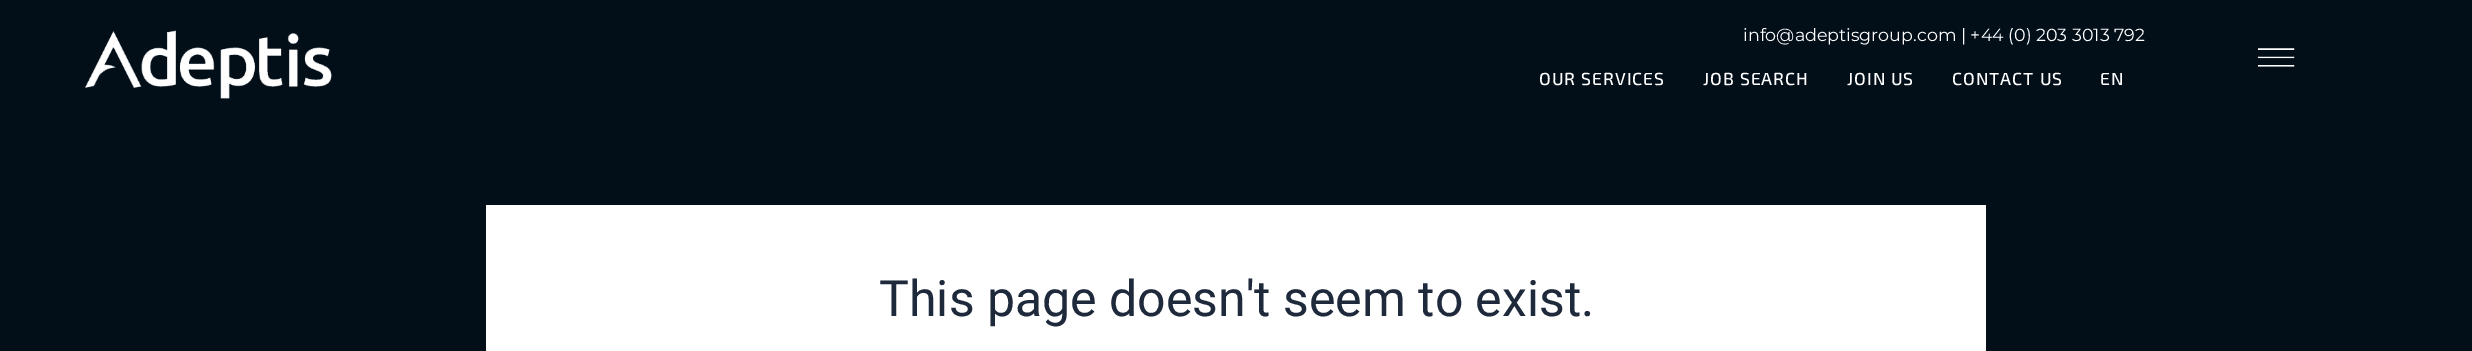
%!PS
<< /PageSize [2472 351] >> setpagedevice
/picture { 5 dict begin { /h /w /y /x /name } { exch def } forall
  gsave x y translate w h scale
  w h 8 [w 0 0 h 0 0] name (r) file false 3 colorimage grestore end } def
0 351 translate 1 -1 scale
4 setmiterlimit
0.008 0.059 0.098 setrgbcolor
0 0 2472 351 rectfill
(img1.rgb) 85 30 247 69 picture
/Montserrat-Regular [17.5 0 0 -17.5 0 0] selectfont
1 setgray
1743 41 moveto (info@adeptisgroup.com | +44 \(0\) 203 3013 792) show
/Exo2-Medium [17.5 0 0 -17.5 0 0] selectfont
1539 85 moveto 1 0 (OUR SERVICES) ashow
1703 85 moveto 1 0 (JOB SEARCH) ashow
1847 85 moveto 1 0 (JOIN US) ashow
1952 85 moveto 1 0 (CONTACT US) ashow
2100 85 moveto 1 0 (EN) ashow
(img2.rgb) 2258 48 37 19 picture
486 205 1500 146 rectfill
/Roboto-Regular [50 0 0 -50 0 0] selectfont
0.118 0.161 0.231 setrgbcolor
879 316 moveto (This page doesn't seem to exist.) show
showpage
